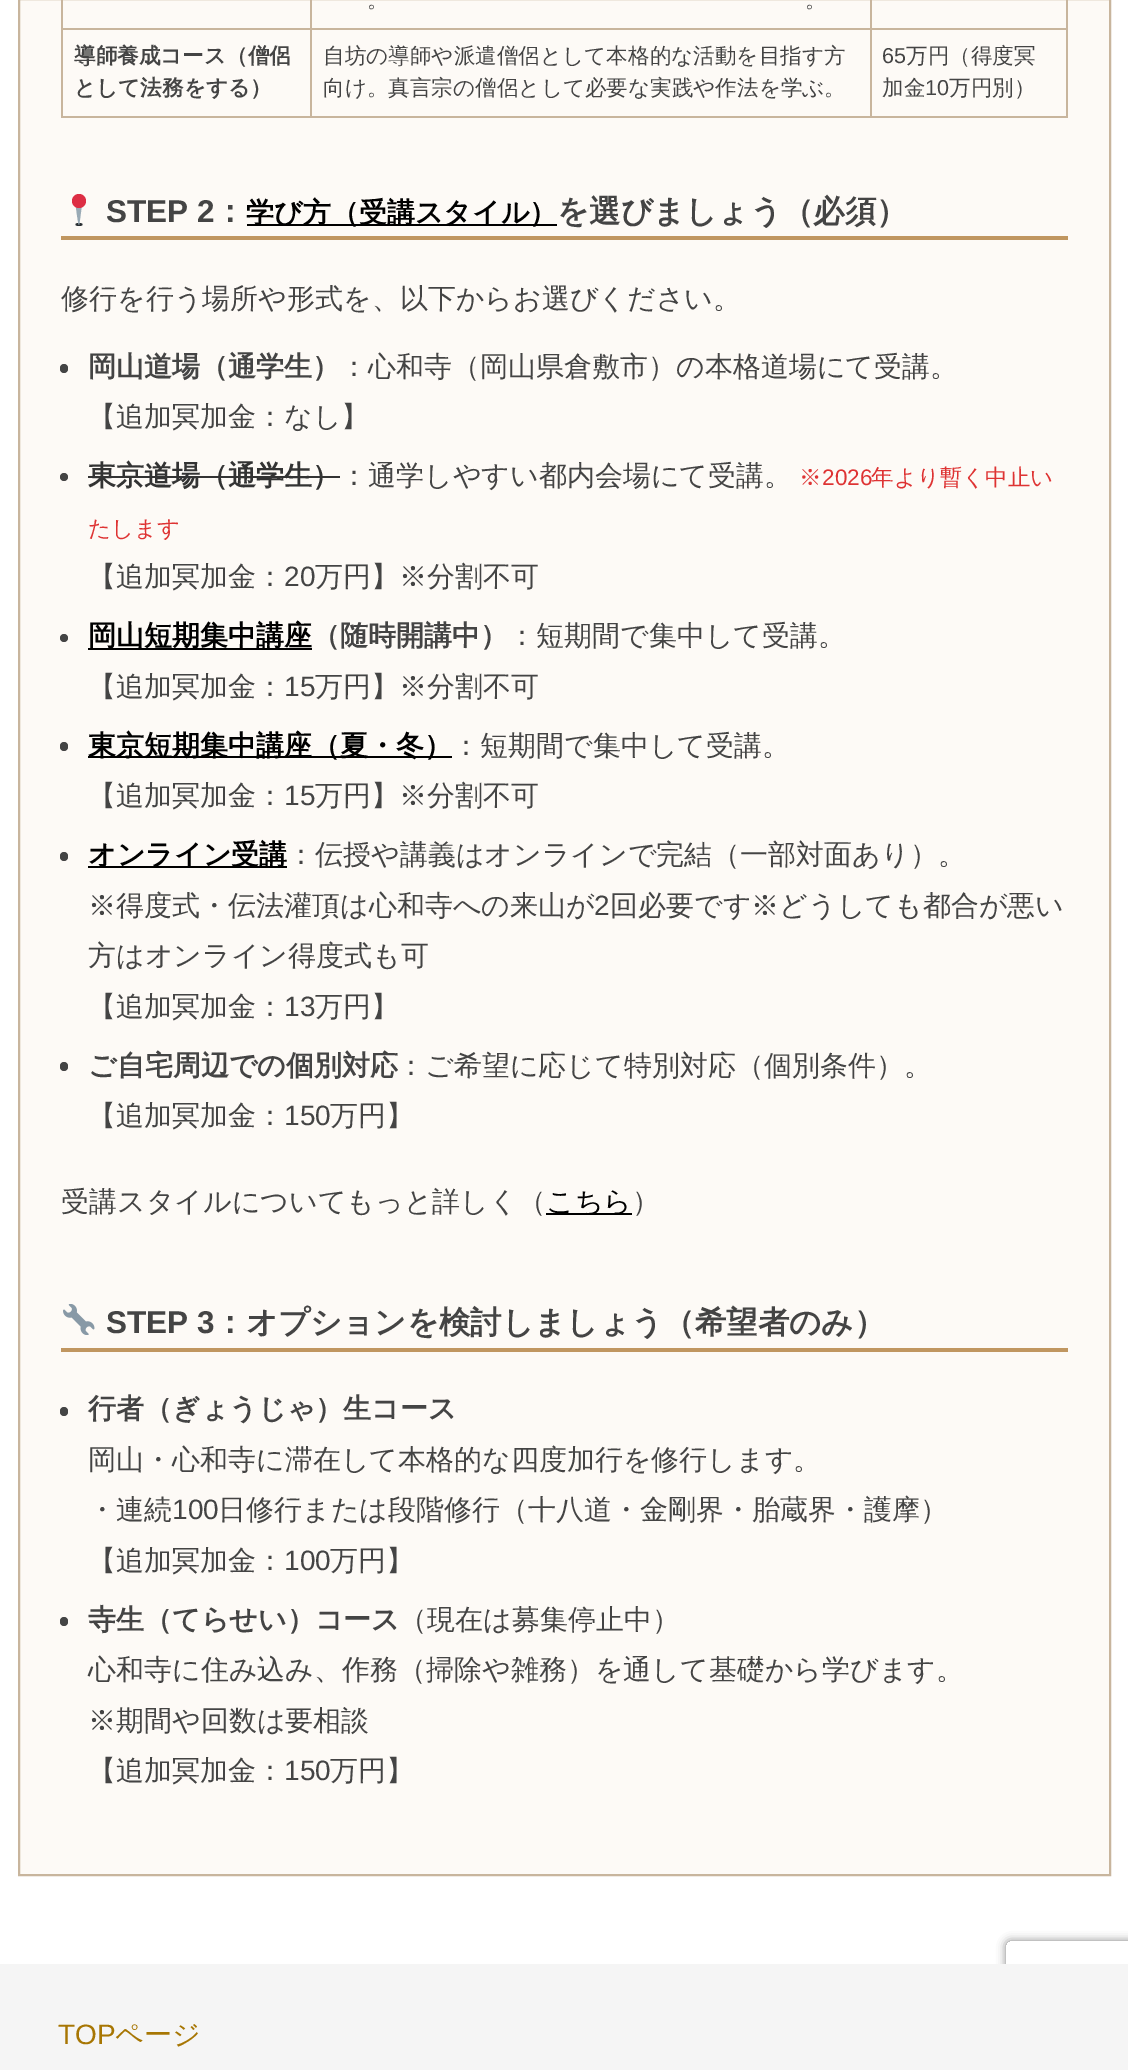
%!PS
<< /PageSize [1128 2070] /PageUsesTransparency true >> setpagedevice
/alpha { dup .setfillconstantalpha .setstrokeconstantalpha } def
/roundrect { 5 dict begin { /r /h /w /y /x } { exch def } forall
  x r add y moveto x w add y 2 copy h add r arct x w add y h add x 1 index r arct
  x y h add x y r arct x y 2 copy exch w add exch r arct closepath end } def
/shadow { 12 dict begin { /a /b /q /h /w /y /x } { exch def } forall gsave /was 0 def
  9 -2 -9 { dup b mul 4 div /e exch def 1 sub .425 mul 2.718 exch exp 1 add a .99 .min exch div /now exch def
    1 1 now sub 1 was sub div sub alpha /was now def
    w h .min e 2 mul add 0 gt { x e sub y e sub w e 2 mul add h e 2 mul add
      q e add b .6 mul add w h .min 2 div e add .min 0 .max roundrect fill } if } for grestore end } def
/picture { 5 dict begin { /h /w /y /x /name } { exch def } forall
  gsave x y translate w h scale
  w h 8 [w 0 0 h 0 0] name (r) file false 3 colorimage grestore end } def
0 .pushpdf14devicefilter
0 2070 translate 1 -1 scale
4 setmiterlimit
1 setgray
0 0 1128 2070 rectfill
0.992 0.98 0.965 setrgbcolor
newpath 19 -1 moveto 1110 -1 lineto 1110 1875 lineto 19 1875 lineto closepath gsave fill grestore
0.784 0.71 0.616 setrgbcolor
2 setlinewidth
stroke
870 28 198 2 rectfill
1066 0 2 117 rectfill
870 116 198 2 rectfill
870 28 2 89 rectfill
310 28 562 2 rectfill
310 116 562 2 rectfill
310 28 2 89 rectfill
61 28 251 2 rectfill
310 0 2 30 rectfill
/WenQuanYiZenHei-Medium [21.6 0 0 -21.6 0 0] selectfont
0.267 setgray
367 7 moveto (。) show
805 7 moveto (。) show
0.784 0.71 0.616 setrgbcolor
870 0 2 30 rectfill
61 116 251 2 rectfill
61 0 2 117 rectfill
/WenQuanYiZenHei-Bold [21.6 0 0 -21.6 0 0] selectfont
0.267 setgray
74 63 moveto (導師養成コース（僧侶) show
74 95 moveto (として法務をする）) show
/WenQuanYiZenHei-Medium [21.6 0 0 -21.6 0 0] selectfont
323 63 moveto (自坊の導師や派遣僧侶として本格的な活動を目指す方) show
323 95 moveto (向け。真言宗の僧侶として必要な実践や作法を学ぶ。) show
/LiberationSans-Regular [21.6 0 0 -21.6 0 0] selectfont
882 63 moveto (65) show
/WenQuanYiZenHei-Medium [21.6 0 0 -21.6 0 0] selectfont
906 63 moveto (万円（得度冥) show
882 95 moveto (加金) show
/LiberationSans-Regular [21.6 0 0 -21.6 0 0] selectfont
925 95 moveto (10) show
/WenQuanYiZenHei-Medium [21.6 0 0 -21.6 0 0] selectfont
949 95 moveto (万円別）) show
0.753 0.588 0.376 setrgbcolor
61 236 1007 4 rectfill
0.161 0.184 0.2 setrgbcolor
newpath 79 223 moveto 81 223 82.5 223.5 82.5 224.5 curveto 82.5 225.5 81 226 79 226 curveto 77 226 75.5 225.5 75.5 224.5 curveto 75.5 223.5 77 223 79 223 curveto closepath fill
0.6 0.667 0.71 setrgbcolor
newpath 75.5 203.5 moveto 75.5 203.5 78 225 79 225 curveto 79.5 225 82 203.5 82 203.5 curveto closepath fill
0.867 0.18 0.267 setrgbcolor
newpath 79 201 7 0 360 arc closepath fill
/LiberationSans-Bold [31.5 0 0 -31.5 0 0] selectfont
0.267 setgray
106 222 moveto (STEP 2) show
0 setgray
247 224 310 2 rectfill
/WenQuanYiZenHei-Bold [28 0 0 -28 0 0] selectfont
246 222 moveto (学び方（受講スタイル）) show
/WenQuanYiZenHei-Bold [31.5 0 0 -31.5 0 0] selectfont
0.267 setgray
557 222 moveto (を選びましょう（必須）) show
214 222 moveto (：) show
/WenQuanYiZenHei-Medium [28 0 0 -28 0 0] selectfont
61 308 moveto (修行を行う場所や形式を、以下からお選びください。) show
60 364 8 9 4 roundrect fill
/WenQuanYiZenHei-Bold [28 0 0 -28 0 0] selectfont
88 376 moveto (岡山道場（通学生）) show
/WenQuanYiZenHei-Medium [28 0 0 -28 0 0] selectfont
340 376 moveto (：心和寺（岡山県倉敷市）の本格道場にて受講。) show
88 426 moveto (【追加冥加金：なし】) show
newpath 64 477 4 0 360 arc closepath fill
/WenQuanYiZenHei-Bold [28 0 0 -28 0 0] selectfont
0.2 setgray
88 485 moveto (東京道場（通学生）) show
88 476 252 2 rectfill
/WenQuanYiZenHei-Medium [28 0 0 -28 0 0] selectfont
0.267 setgray
340 485 moveto (：通学しやすい都内会場にて受講。) show
/WenQuanYiZenHei-Medium [22.5 0 0 -22.5 0 0] selectfont
0.871 0.2 0.2 setrgbcolor
799 485 moveto (※) show
/LiberationSans-Regular [22.5 0 0 -22.5 0 0] selectfont
822 485 moveto (2026) show
/WenQuanYiZenHei-Medium [22.5 0 0 -22.5 0 0] selectfont
871 485 moveto (年より暫く中止い) show
88 536 moveto (たします) show
/WenQuanYiZenHei-Medium [28 0 0 -28 0 0] selectfont
0.267 setgray
88 586 moveto (【追加冥加金：) show
/LiberationSans-Regular [28 0 0 -28 0 0] selectfont
284 586 moveto (20) show
/WenQuanYiZenHei-Medium [28 0 0 -28 0 0] selectfont
315 586 moveto (万円】※分割不可) show
newpath 64 638 4 0 360 arc closepath fill
0 setgray
88 648 224 2 rectfill
/WenQuanYiZenHei-Bold [28 0 0 -28 0 0] selectfont
88 645 moveto (岡山短期集中講座) show
0.267 setgray
312 645 moveto (（随時開講中）) show
/WenQuanYiZenHei-Medium [28 0 0 -28 0 0] selectfont
508 645 moveto (：短期間で集中して受講。) show
88 696 moveto (【追加冥加金：) show
/LiberationSans-Regular [28 0 0 -28 0 0] selectfont
284 696 moveto (15) show
/WenQuanYiZenHei-Medium [28 0 0 -28 0 0] selectfont
315 696 moveto (万円】※分割不可) show
60 742 8 9 4 roundrect fill
0 setgray
88 756 364 2 rectfill
/WenQuanYiZenHei-Bold [28 0 0 -28 0 0] selectfont
88 755 moveto (東京短期集中講座（夏・冬）) show
/WenQuanYiZenHei-Medium [28 0 0 -28 0 0] selectfont
0.267 setgray
452 755 moveto (：短期間で集中して受講。) show
88 805 moveto (【追加冥加金：) show
/LiberationSans-Regular [28 0 0 -28 0 0] selectfont
284 805 moveto (15) show
/WenQuanYiZenHei-Medium [28 0 0 -28 0 0] selectfont
315 805 moveto (万円】※分割不可) show
60 852 8 9 4 roundrect fill
0 setgray
88 866 199 2 rectfill
/WenQuanYiZenHei-Bold [28 0 0 -28 0 0] selectfont
88 864 moveto (オンライン受講) show
/WenQuanYiZenHei-Medium [28 0 0 -28 0 0] selectfont
0.267 setgray
287 864 moveto (：伝授や講義はオンラインで完結（一部対面あり）。) show
88 915 moveto (※得度式・伝法灌頂は心和寺への来山が) show
/LiberationSans-Regular [28 0 0 -28 0 0] selectfont
594 915 moveto (2) show
/WenQuanYiZenHei-Medium [28 0 0 -28 0 0] selectfont
610 915 moveto (回必要です※どうしても都合が悪い) show
88 965 moveto (方はオンライン得度式も可) show
88 1016 moveto (【追加冥加金：) show
/LiberationSans-Regular [28 0 0 -28 0 0] selectfont
284 1016 moveto (13) show
/WenQuanYiZenHei-Medium [28 0 0 -28 0 0] selectfont
315 1016 moveto (万円】) show
60 1062 8 9 4 roundrect fill
/WenQuanYiZenHei-Bold [28 0 0 -28 0 0] selectfont
88 1075 moveto (ご自宅周辺での個別対応) show
/WenQuanYiZenHei-Medium [28 0 0 -28 0 0] selectfont
397 1075 moveto (：ご希望に応じて特別対応（個別条件）。) show
88 1125 moveto (【追加冥加金：) show
/LiberationSans-Regular [28 0 0 -28 0 0] selectfont
284 1125 moveto (150) show
/WenQuanYiZenHei-Medium [28 0 0 -28 0 0] selectfont
330 1125 moveto (万円】) show
61 1211 moveto (受講スタイルについてもっと詳しく（) show
0 setgray
546 1213 86 2 rectfill
546 1211 moveto (こちら) show
0.267 setgray
632 1211 moveto (）) show
0.753 0.588 0.376 setrgbcolor
61 1348 1007 4 rectfill
(img1.rgb) 63 1304 32 31 picture
/LiberationSans-Bold [31.5 0 0 -31.5 0 0] selectfont
0.267 setgray
106 1333 moveto (STEP 3) show
/WenQuanYiZenHei-Bold [31.5 0 0 -31.5 0 0] selectfont
214 1333 moveto (：オプションを検討しましょう（希望者のみ）) show
60 1407 8 9 4 roundrect fill
/WenQuanYiZenHei-Bold [28 0 0 -28 0 0] selectfont
88 1418 moveto (行者（ぎょうじゃ）生コース) show
/WenQuanYiZenHei-Medium [28 0 0 -28 0 0] selectfont
88 1469 moveto (岡山・心和寺に滞在して本格的な四度加行を修行します。) show
88 1519 moveto (・連続) show
/LiberationSans-Regular [28 0 0 -28 0 0] selectfont
172 1519 moveto (100) show
/WenQuanYiZenHei-Medium [28 0 0 -28 0 0] selectfont
218 1519 moveto (日修行または段階修行（十八道・金剛界・胎蔵界・護摩）) show
88 1570 moveto (【追加冥加金：) show
/LiberationSans-Regular [28 0 0 -28 0 0] selectfont
284 1570 moveto (100) show
/WenQuanYiZenHei-Medium [28 0 0 -28 0 0] selectfont
330 1570 moveto (万円】) show
60 1617 8 9 4 roundrect fill
/WenQuanYiZenHei-Bold [28 0 0 -28 0 0] selectfont
88 1629 moveto (寺生（てらせい）コース) show
/WenQuanYiZenHei-Medium [28 0 0 -28 0 0] selectfont
399 1629 moveto (（現在は募集停止中）) show
88 1679 moveto (心和寺に住み込み、作務（掃除や雑務）を通して基礎から学びます。) show
88 1730 moveto (※期間や回数は要相談) show
88 1780 moveto (【追加冥加金：) show
/LiberationSans-Regular [28 0 0 -28 0 0] selectfont
284 1780 moveto (150) show
/WenQuanYiZenHei-Medium [28 0 0 -28 0 0] selectfont
330 1780 moveto (万円】) show
gsave
newpath 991 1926 moveto 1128 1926 lineto 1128 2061 lineto 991 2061 lineto closepath 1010 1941 moveto 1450 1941 lineto 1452 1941 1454 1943 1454 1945 curveto 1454 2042 lineto 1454 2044 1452 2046 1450 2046 curveto 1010 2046 lineto 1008 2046 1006 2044 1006 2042 curveto 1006 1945 lineto 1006 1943 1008 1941 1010 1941 curveto closepath eoclip newpath
0.502 setgray
1006 1941 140 105 4 4.5 1 shadow
grestore
0.961 setgray
0 1964 1128 106 rectfill
/LiberationSans-Regular [28 0 0 -28 0 0] selectfont
0.655 0.463 0.012 setrgbcolor
58 2044 moveto (TOP) show
/WenQuanYiZenHei-Medium [28 0 0 -28 0 0] selectfont
115 2044 moveto (ページ) show
.poppdf14devicefilter showpage
